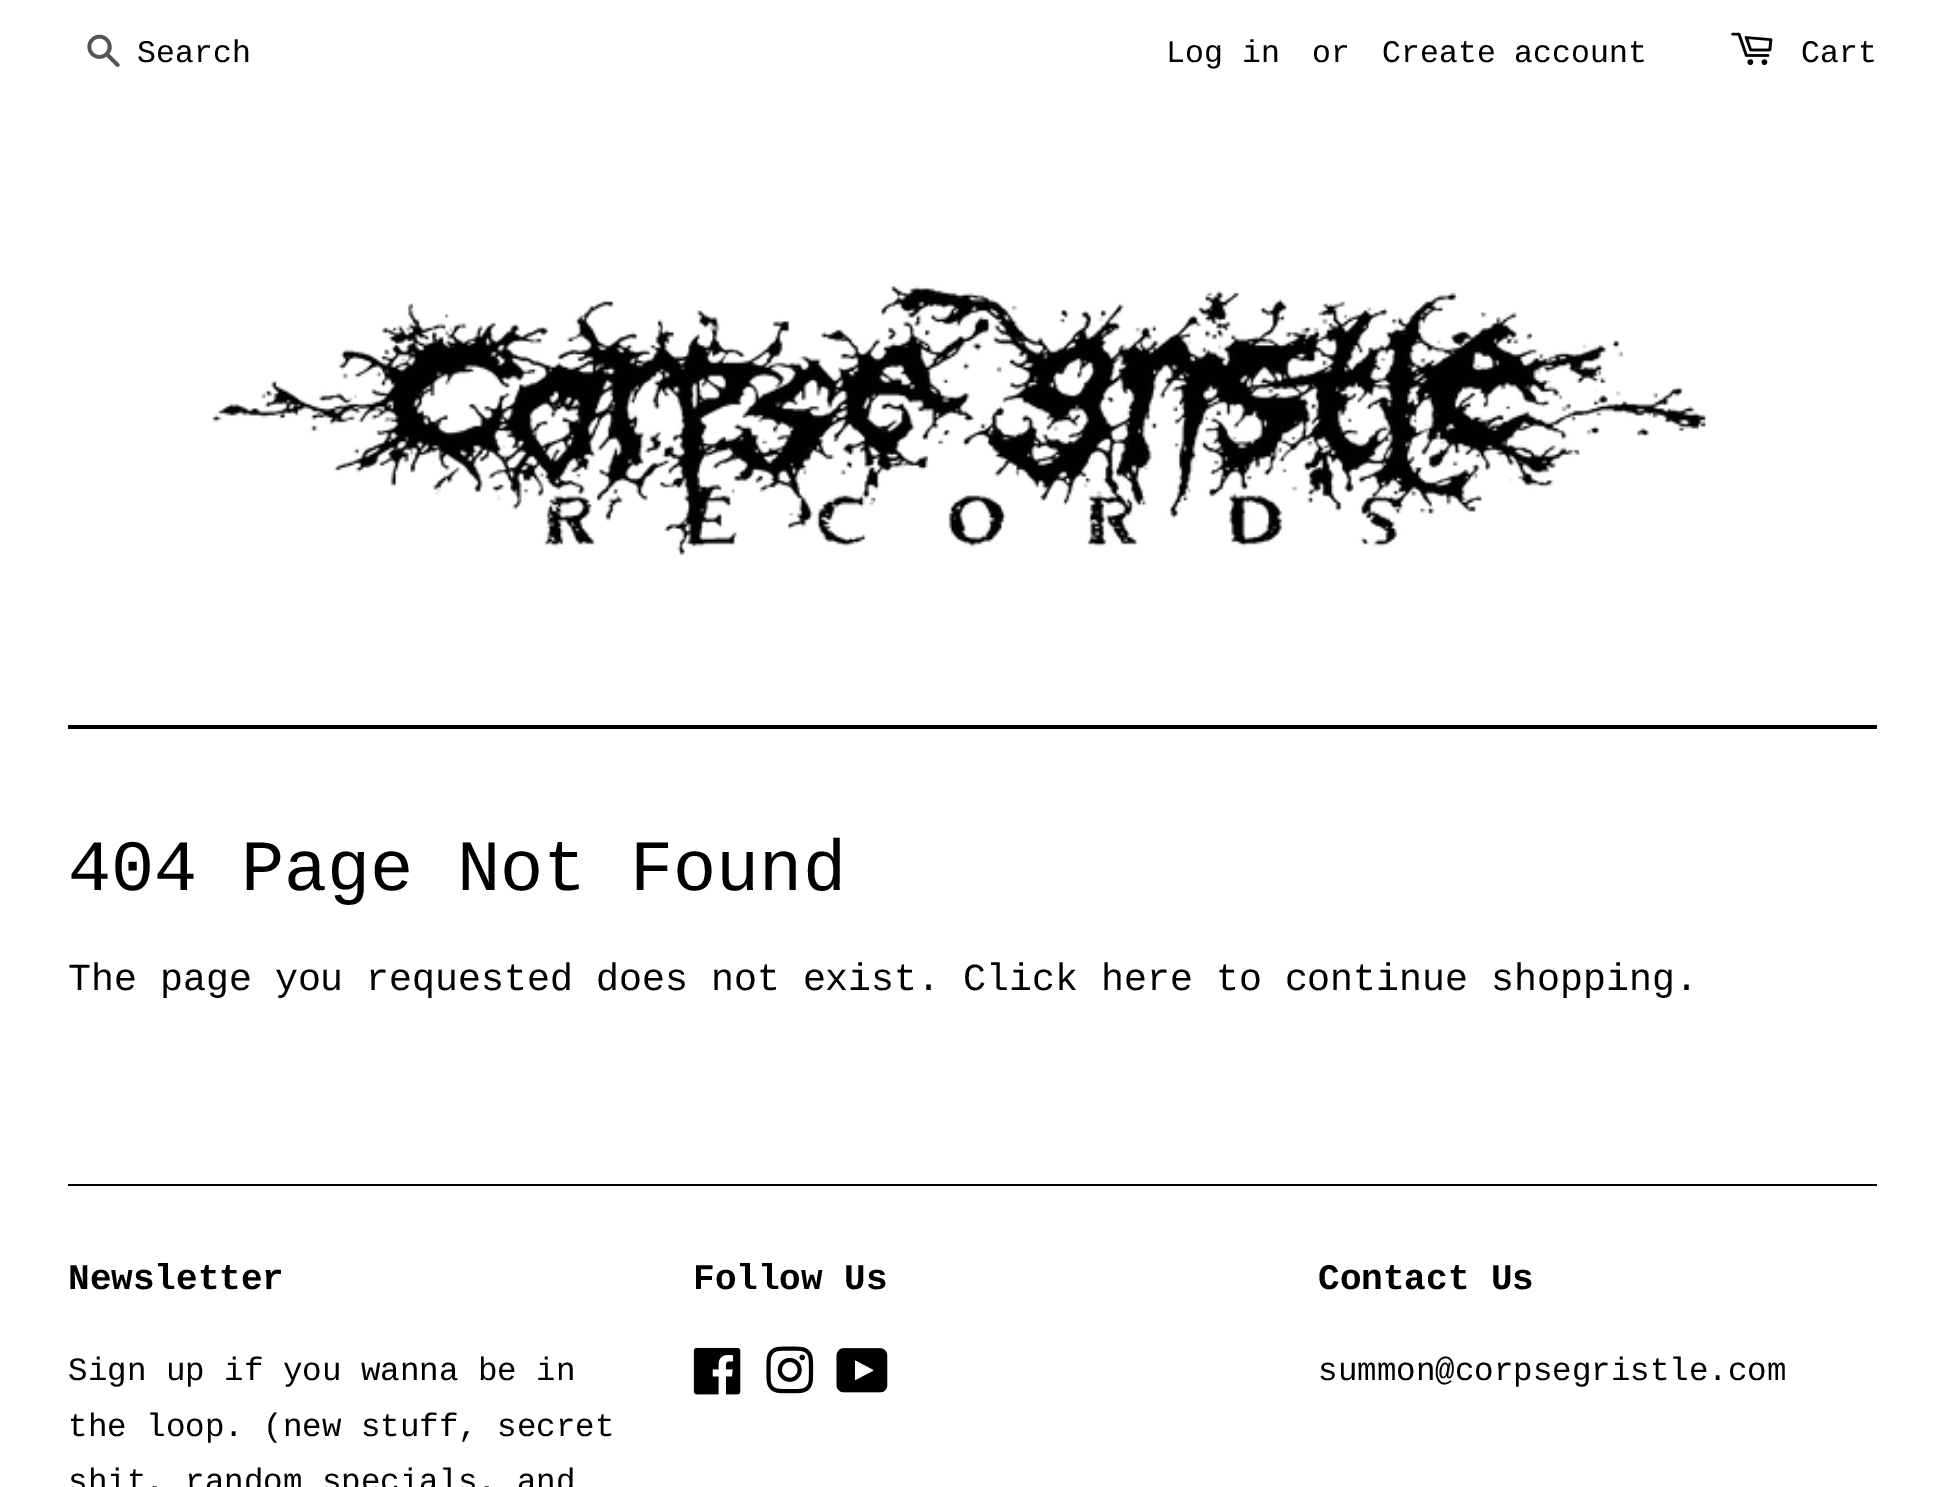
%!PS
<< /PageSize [1942 1487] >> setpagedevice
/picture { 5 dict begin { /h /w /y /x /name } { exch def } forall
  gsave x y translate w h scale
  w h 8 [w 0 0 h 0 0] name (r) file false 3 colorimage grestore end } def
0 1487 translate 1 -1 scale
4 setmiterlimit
1 setgray
0 0 1942 1487 rectfill
(img1.rgb) 87 34 33 33 picture
/LiberationMono-Regular [31.5 0 0 -31.5 0 0] selectfont
0 setgray
137 62 moveto (Search) show
1166 62 moveto (Log in) show
1312 62 moveto (or) show
1382 62 moveto (Create account) show
(img2.rgb) 1731 32 42 34 picture
1801 62 moveto (Cart) show
(img3.rgb) 212 286 1494 270 picture
68 725 1809 4 rectfill
/LiberationMono-Regular [72 0 0 -72 0 0] selectfont
68 890 moveto (404 Page Not Found) show
/LiberationMono-Regular [38.25 0 0 -38.25 0 0] selectfont
68 990 moveto (The page you requested does not exist. Click here to continue shopping.) show
68 1184 1809 2 rectfill
/LiberationMono-Bold [36 0 0 -36 0 0] selectfont
68 1289 moveto (Newsletter) show
/LiberationMono-Regular [32.5 0 0 -32.5 0 0] selectfont
68 1380 moveto (Sign up if you wanna be in) show
68 1436 moveto (the loop. \(new stuff, secret) show
68 1491 moveto (shit, random specials, and) show
/LiberationMono-Bold [36 0 0 -36 0 0] selectfont
693 1289 moveto (Follow Us) show
(img4.rgb) 693 1347 48 48 picture
(img5.rgb) 766 1346 48 48 picture
(img6.rgb) 836 1348 52 45 picture
1318 1289 moveto (Contact Us) show
/LiberationMono-Regular [32.5 0 0 -32.5 0 0] selectfont
1318 1380 moveto (summon@corpsegristle.com) show
showpage
